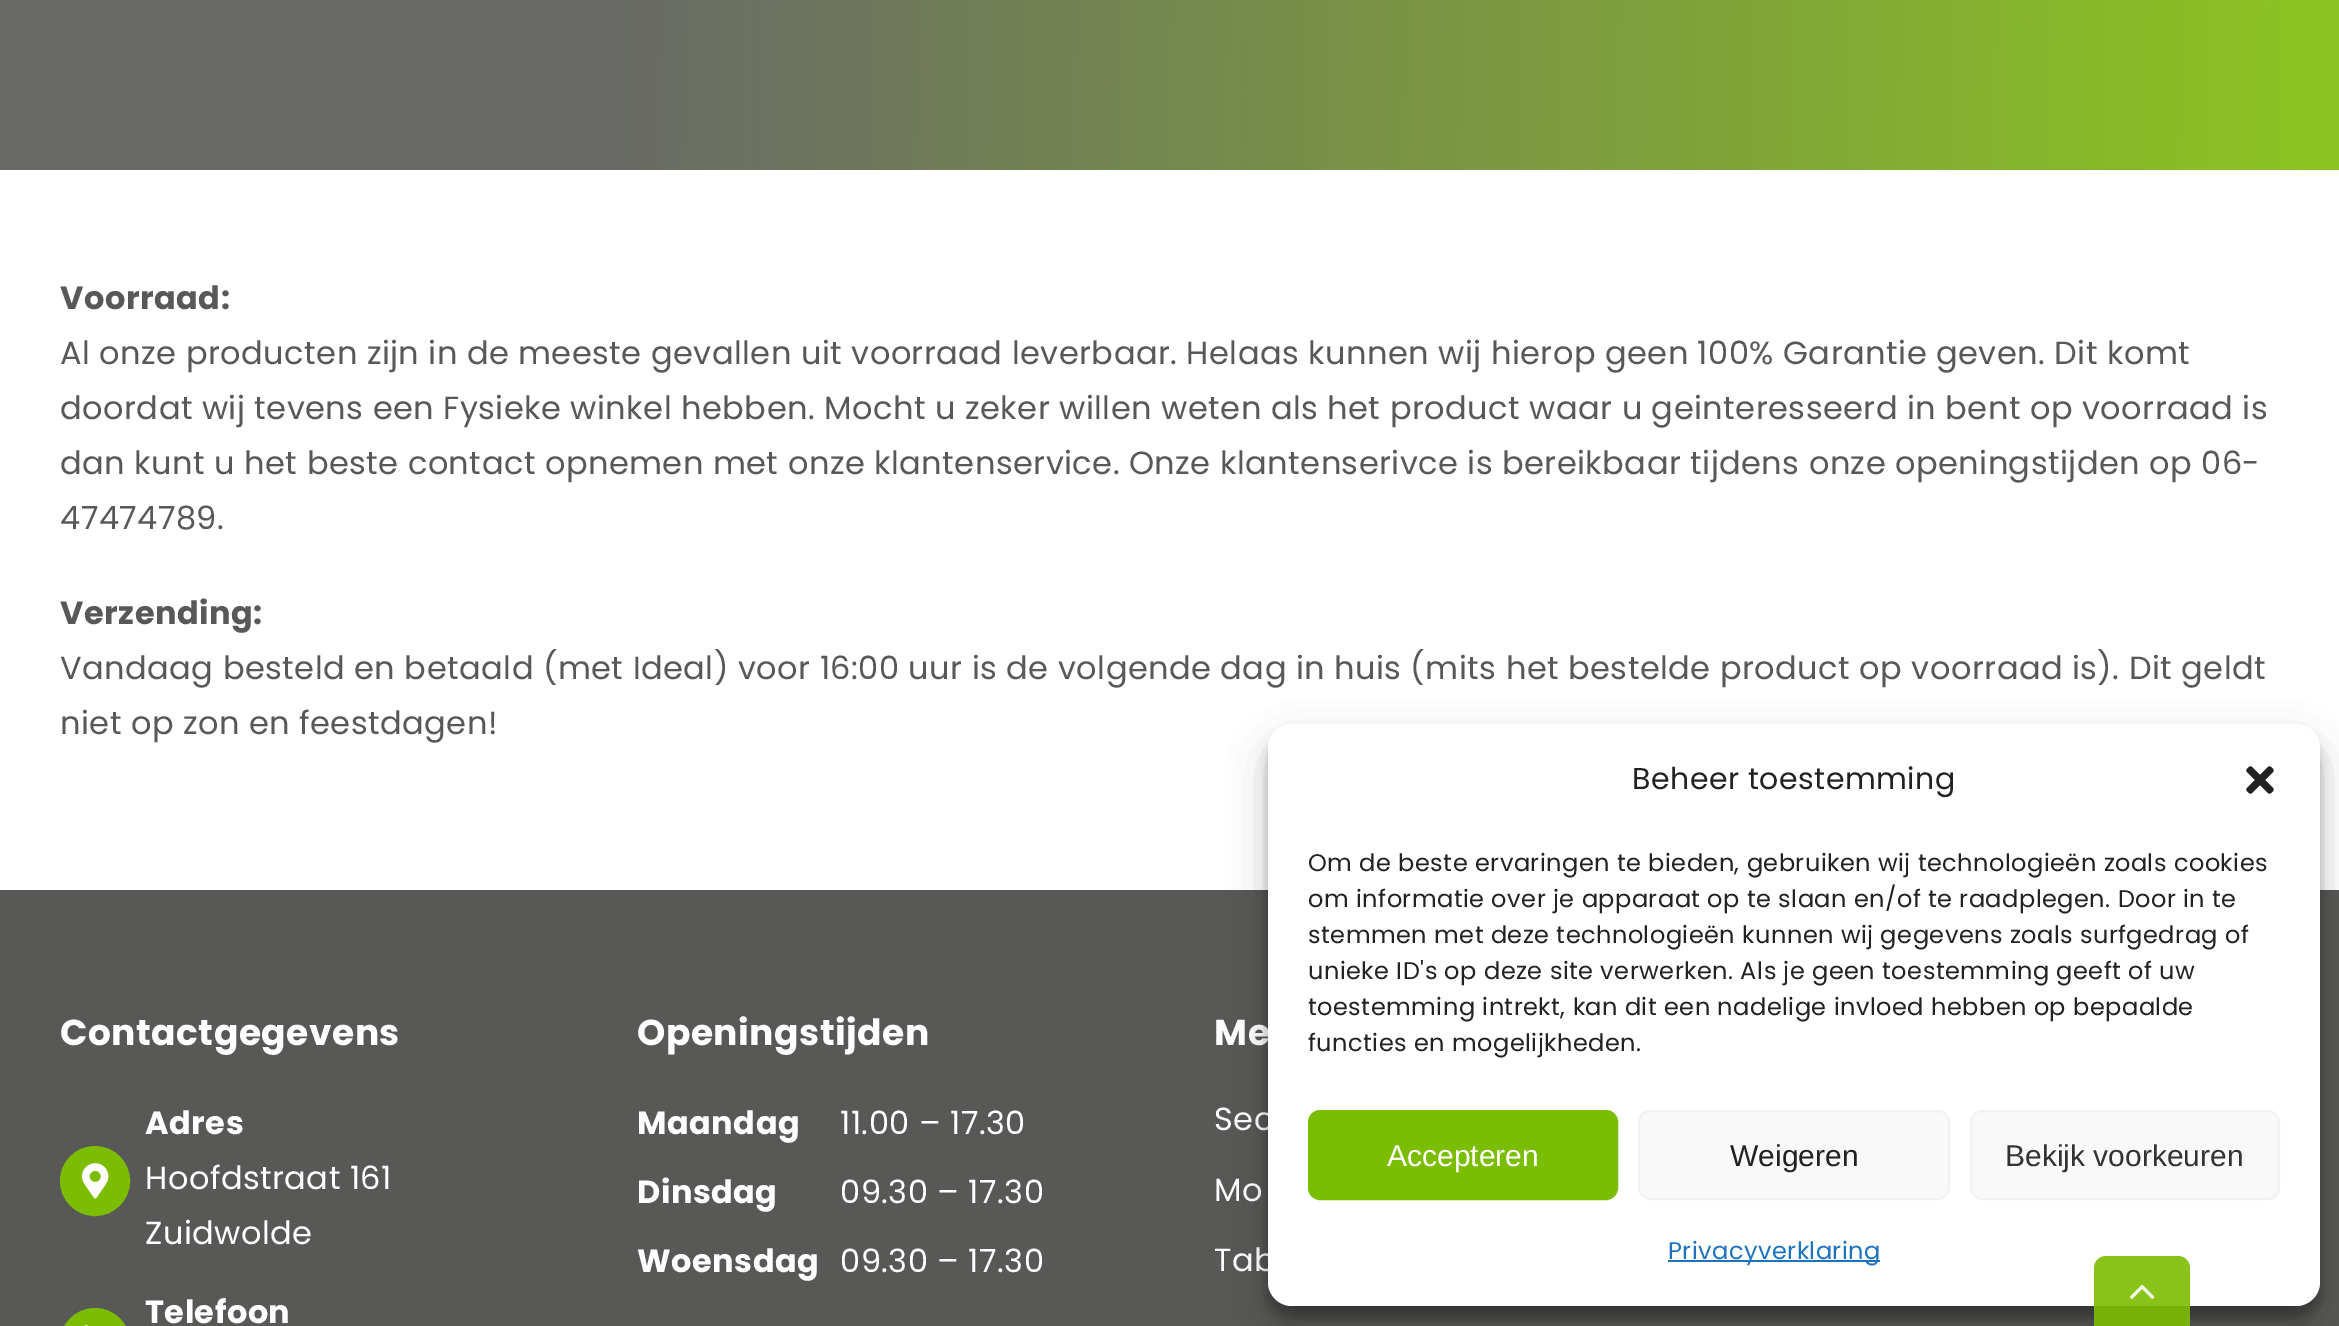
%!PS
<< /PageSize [2339 1326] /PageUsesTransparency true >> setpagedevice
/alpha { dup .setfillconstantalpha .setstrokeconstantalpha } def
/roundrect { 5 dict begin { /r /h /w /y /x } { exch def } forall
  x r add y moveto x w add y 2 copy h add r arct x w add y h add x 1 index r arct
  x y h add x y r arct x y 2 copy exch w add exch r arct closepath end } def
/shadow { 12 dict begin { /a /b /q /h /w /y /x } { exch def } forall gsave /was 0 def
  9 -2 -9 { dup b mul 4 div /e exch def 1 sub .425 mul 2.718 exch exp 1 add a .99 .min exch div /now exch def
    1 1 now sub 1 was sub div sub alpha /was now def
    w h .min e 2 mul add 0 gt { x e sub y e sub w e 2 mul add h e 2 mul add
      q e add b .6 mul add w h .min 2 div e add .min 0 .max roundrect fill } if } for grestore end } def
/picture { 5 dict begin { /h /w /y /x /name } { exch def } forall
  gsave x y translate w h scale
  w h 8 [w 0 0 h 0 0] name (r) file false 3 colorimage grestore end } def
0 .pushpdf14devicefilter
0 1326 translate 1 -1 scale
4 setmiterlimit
1 setgray
0 0 2339 1326 rectfill
gsave newpath 0 0 moveto 2339 0 lineto 2339 170 lineto 0 170 lineto closepath clip newpath
<< /ShadingType 2 /ColorSpace /DeviceRGB /Coords [-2.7 -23 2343 17] /Extend [true true] /Function << /FunctionType 3 /Domain [0 1] /Functions [<< /FunctionType 2 /Domain [0 1] /C0 [0.412 0.412 0.404] /C1 [0.412 0.412 0.404] /N 1 >> << /FunctionType 2 /Domain [0 1] /C0 [0.412 0.412 0.404] /C1 [0.549 0.773 0.125] /N 1 >>] /Bounds [0.25] /Encode [0 1 0 1] >> >> shfill grestore
/Poppins-Bold [32 0 0 -32 0 0] selectfont
0.345 0.345 0.337 setrgbcolor
60 309 moveto 0.48 0 (Voorraad:) ashow
/Poppins-Regular [32 0 0 -32 0 0] selectfont
60 364 moveto 0.48 0 (Al onze producten zijn in de meeste gevallen uit voorraad leverbaar. Helaas kunnen wij hierop geen 100% Garantie geven. Dit komt) ashow
60 419 moveto 0.48 0 (doordat wij tevens een Fysieke winkel hebben. Mocht u zeker willen weten als het product waar u geinteresseerd in bent op voorraad is) ashow
60 474 moveto 0.48 0 (dan kunt u het beste contact opnemen met onze klantenservice. Onze klantenserivce is bereikbaar tijdens onze openingstijden op 06-) ashow
60 529 moveto 0.48 0 (47474789.) ashow
/Poppins-Bold [32 0 0 -32 0 0] selectfont
60 624 moveto 0.48 0 (Verzending:) ashow
/Poppins-Regular [32 0 0 -32 0 0] selectfont
60 679 moveto 0.48 0 (Vandaag besteld en betaald \(met Ideal\) voor 16:00 uur is de volgende dag in huis \(mits het bestelde product op voorraad is\). Dit geldt) ashow
60 734 moveto 0.48 0 (niet op zon en feestdagen!) ashow
0 890 2339 436 rectfill
/Poppins-Bold [36 0 0 -36 0 0] selectfont
1 setgray
60 1045 moveto 0.5 0 (Contactgegevens) ashow
0.486 0.741 0.004 setrgbcolor
newpath 95 1181 34 0 360 arc closepath gsave fill grestore
2 setlinewidth
stroke
(img1.rgb) 82 1163 27 36 picture
/Poppins-Bold [32 0 0 -32 0 0] selectfont
1 setgray
145 1134 moveto 0.48 0 (Adres) ashow
/Poppins-Regular [32 0 0 -32 0 0] selectfont
145 1189 moveto 0.48 0 (Hoofdstraat 161) ashow
145 1244 moveto 0.48 0 (Zuidwolde) ashow
0.486 0.741 0.004 setrgbcolor
61 1309 68 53 34 roundrect gsave fill grestore
stroke
(img2.rgb) 83 1325 5 1 picture
/Poppins-Bold [32 0 0 -32 0 0] selectfont
1 setgray
145 1323 moveto 0.48 0 (Telefoon) ashow
/Poppins-Bold [36 0 0 -36 0 0] selectfont
637 1045 moveto 0.5 0 (Openingstijden) ashow
/Poppins-Bold [32 0 0 -32 0 0] selectfont
637 1134 moveto 0.48 0 (Maandag) ashow
/Poppins-Regular [32 0 0 -32 0 0] selectfont
840 1134 moveto 0.48 0 (11.00 – 17.30) ashow
/Poppins-Bold [32 0 0 -32 0 0] selectfont
637 1203 moveto 0.48 0 (Dinsdag) ashow
/Poppins-Regular [32 0 0 -32 0 0] selectfont
840 1203 moveto 0.48 0 (09.30 – 17.30) ashow
/Poppins-Bold [32 0 0 -32 0 0] selectfont
637 1272 moveto 0.48 0 (Woensdag) ashow
/Poppins-Regular [32 0 0 -32 0 0] selectfont
840 1272 moveto 0.48 0 (09.30 – 17.30) ashow
/Poppins-Bold [36 0 0 -36 0 0] selectfont
1214 1045 moveto 0.5 0 (Me) ashow
/Poppins-Regular [32 0 0 -32 0 0] selectfont
1214 1130 moveto 0.48 0 (Sec) ashow
1214 1201 moveto 0.48 0 (Mo) ashow
1214 1271 moveto 0.48 0 (Tab) ashow
0 setgray
1268 736 1052 582 24 6 0.23 shadow
1268 744 1052 582 24 20 0.19 shadow
1 setgray
1268 724 1052 582 24 roundrect fill
/Poppins-Regular [30 0 0 -30 0 0] selectfont
0.133 setgray
1632 789 moveto 0.48 0 (Beheer toestemming) ashow
(img3.rgb) 2246 766 28 28 picture
/Poppins-Regular [24 0 0 -24 0 0] selectfont
1308 871 moveto 0.48 0 (Om de beste ervaringen te bieden, gebruiken wij technologieën zoals cookies) ashow
1308 907 moveto 0.48 0 (om informatie over je apparaat op te slaan en/of te raadplegen. Door in te) ashow
1308 943 moveto 0.48 0 (stemmen met deze technologieën kunnen wij gegevens zoals surfgedrag of) ashow
1308 979 moveto 0.48 0 (unieke ID's op deze site verwerken. Als je geen toestemming geeft of uw) ashow
1308 1015 moveto 0.48 0 (toestemming intrekt, kan dit een nadelige invloed hebben op bepaalde) ashow
1308 1051 moveto 0.48 0 (functies en mogelijkheden.) ashow
0.482 0.741 0.012 setrgbcolor
1309 1111 308 88 11 roundrect gsave fill grestore
stroke
/LiberationSans-Regular [30 0 0 -30 0 0] selectfont
1 setgray
1387 1166 moveto (Accepteren) show
0.976 setgray
1639 1111 310 88 11 roundrect gsave fill grestore
0.949 setgray
stroke
0.133 setgray
1730 1166 moveto (Weigeren) show
0.976 setgray
1971 1111 308 88 11 roundrect gsave fill grestore
0.949 setgray
stroke
0.2 setgray
2005 1166 moveto (Bekijk voorkeuren) show
0.118 0.451 0.745 setrgbcolor
1668 1260 212 2 rectfill
/Poppins-Regular [24 0 0 -24 0 0] selectfont
1668 1259 moveto 0.48 0 (Privacyverklaring) ashow
0.9 alpha
0.486 0.741 0.004 setrgbcolor
newpath 2106 1256 moveto 2178 1256 lineto 2184.5 1256 2190 1261.5 2190 1268 curveto 2190 1326 lineto 2094 1326 lineto 2094 1268 lineto 2094 1261.5 2099.5 1256 2106 1256 curveto closepath fill
1 alpha
(img4.rgb) 2130 1284 25 15 picture
.poppdf14devicefilter showpage
